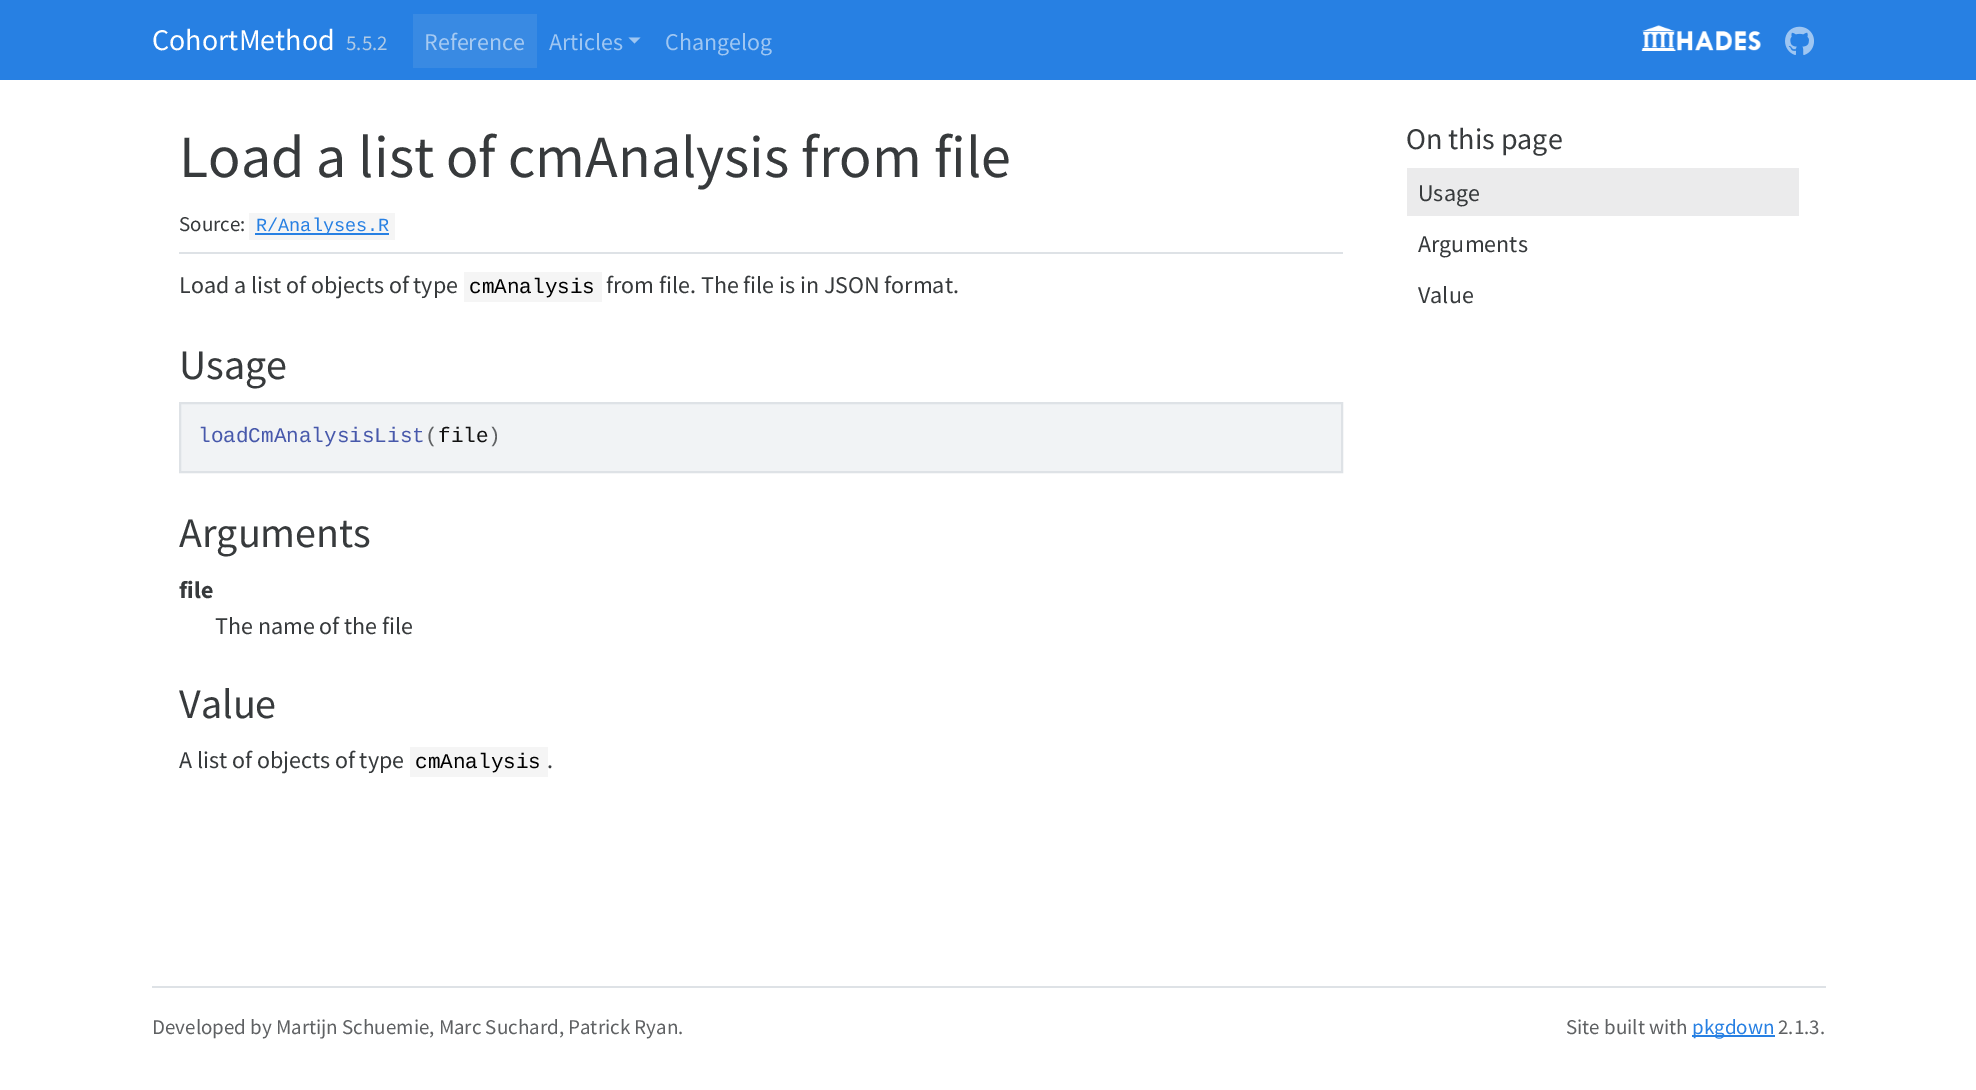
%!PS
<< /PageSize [1976 1090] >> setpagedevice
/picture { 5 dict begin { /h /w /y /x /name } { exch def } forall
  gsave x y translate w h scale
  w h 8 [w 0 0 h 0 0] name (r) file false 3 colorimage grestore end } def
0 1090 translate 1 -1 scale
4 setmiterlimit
1 setgray
0 0 1976 1090 rectfill
0.153 0.502 0.89 setrgbcolor
0 0 1976 80 rectfill
/SourceSansPro-Regular [30 0 0 -30 0 0] selectfont
1 setgray
152 50 moveto (CohortMethod) show
/SourceSansPro-Regular [21 0 0 -21 0 0] selectfont
0.69 0.792 0.898 setrgbcolor
346 50 moveto (5.5.2) show
0.224 0.541 0.89 setrgbcolor
413 14 124 54 rectfill
/SourceSansPro-Regular [24 0 0 -24 0 0] selectfont
0.651 0.792 0.949 setrgbcolor
424 50 moveto (Reference) show
0.62 0.776 0.949 setrgbcolor
549 50 moveto (Articles) show
newpath 628.5 37.5 moveto 640.5 37.5 lineto 634.5 43.5 lineto closepath fill
665 50 moveto (Changelog) show
(img1.rgb) 1641 25 120 26 picture
(img2.rgb) 1785 26 29 29 picture
0.871 0.886 0.902 setrgbcolor
179 252 1164 2 rectfill
/SourceSansPro-Regular [60 0 0 -60 0 0] selectfont
0.216 0.227 0.235 setrgbcolor
179 177 moveto (Load a list of cmAnalysis from file) show
/SourceSansPro-Regular [21 0 0 -21 0 0] selectfont
179 231 moveto (Source:) show
0.961 setgray
249 213 146 27 rectfill
0.153 0.502 0.89 setrgbcolor
255 233 134 2 rectfill
/LiberationMono-Regular [18.5 0 0 -18.5 0 0] selectfont
256 231 moveto (R/Analyses.R) show
/SourceSansPro-Regular [24 0 0 -24 0 0] selectfont
0.216 0.227 0.235 setrgbcolor
179 293 moveto (Load a list of objects of type) show
0.961 setgray
464 272 138 30 rectfill
/LiberationMono-Regular [21 0 0 -21 0 0] selectfont
0 setgray
469 293 moveto (cmAnalysis) show
/SourceSansPro-Regular [24 0 0 -24 0 0] selectfont
0.216 0.227 0.235 setrgbcolor
606 293 moveto (from file. The file is in JSON format.) show
/SourceSansPro-Regular [42 0 0 -42 0 0] selectfont
179 379 moveto (Usage) show
0.945 0.953 0.961 setrgbcolor
newpath 180 403 moveto 1342 403 lineto 1342 472 lineto 180 472 lineto closepath gsave fill grestore
0.871 0.886 0.902 setrgbcolor
2 setlinewidth
stroke
/LiberationMono-Regular [21 0 0 -21 0 0] selectfont
0.278 0.345 0.671 setrgbcolor
198 442 moveto (loadCmAnalysisList) show
0.373 0.38 0.388 setrgbcolor
425 442 moveto (\() show
0.067 setgray
438 442 moveto (file) show
0.373 0.38 0.388 setrgbcolor
488 442 moveto (\)) show
/SourceSansPro-Regular [42 0 0 -42 0 0] selectfont
0.216 0.227 0.235 setrgbcolor
179 547 moveto (Arguments) show
/SourceSansPro-Bold [24 0 0 -24 0 0] selectfont
179 598 moveto (file) show
/SourceSansPro-Regular [24 0 0 -24 0 0] selectfont
215 634 moveto (The name of the file) show
/SourceSansPro-Regular [42 0 0 -42 0 0] selectfont
179 718 moveto (Value) show
/SourceSansPro-Regular [24 0 0 -24 0 0] selectfont
179 768 moveto (A list of objects of type) show
0.961 setgray
410 747 138 30 rectfill
/LiberationMono-Regular [21 0 0 -21 0 0] selectfont
0 setgray
415 768 moveto (cmAnalysis) show
/SourceSansPro-Regular [24 0 0 -24 0 0] selectfont
0.216 0.227 0.235 setrgbcolor
547 768 moveto (.) show
/SourceSansPro-Regular [30 0 0 -30 0 0] selectfont
1406 149 moveto (On this page) show
0.922 0.922 0.925 setrgbcolor
1407 168 392 48 rectfill
/SourceSansPro-Regular [24 0 0 -24 0 0] selectfont
0.216 0.227 0.235 setrgbcolor
1418 201 moveto (Usage) show
1418 252 moveto (Arguments) show
1418 303 moveto (Value) show
0.871 0.886 0.902 setrgbcolor
152 986 1674 2 rectfill
/SourceSansPro-Regular [21 0 0 -21 0 0] selectfont
0.373 0.38 0.388 setrgbcolor
152 1034 moveto (Developed by Martijn Schuemie, Marc Suchard, Patrick Ryan.) show
1566 1034 moveto (Site built with) show
0.153 0.502 0.89 setrgbcolor
1692 1035 83 2 rectfill
1692 1034 moveto (pkgdown) show
0.373 0.38 0.388 setrgbcolor
1778 1034 moveto (2.1.3.) show
showpage
